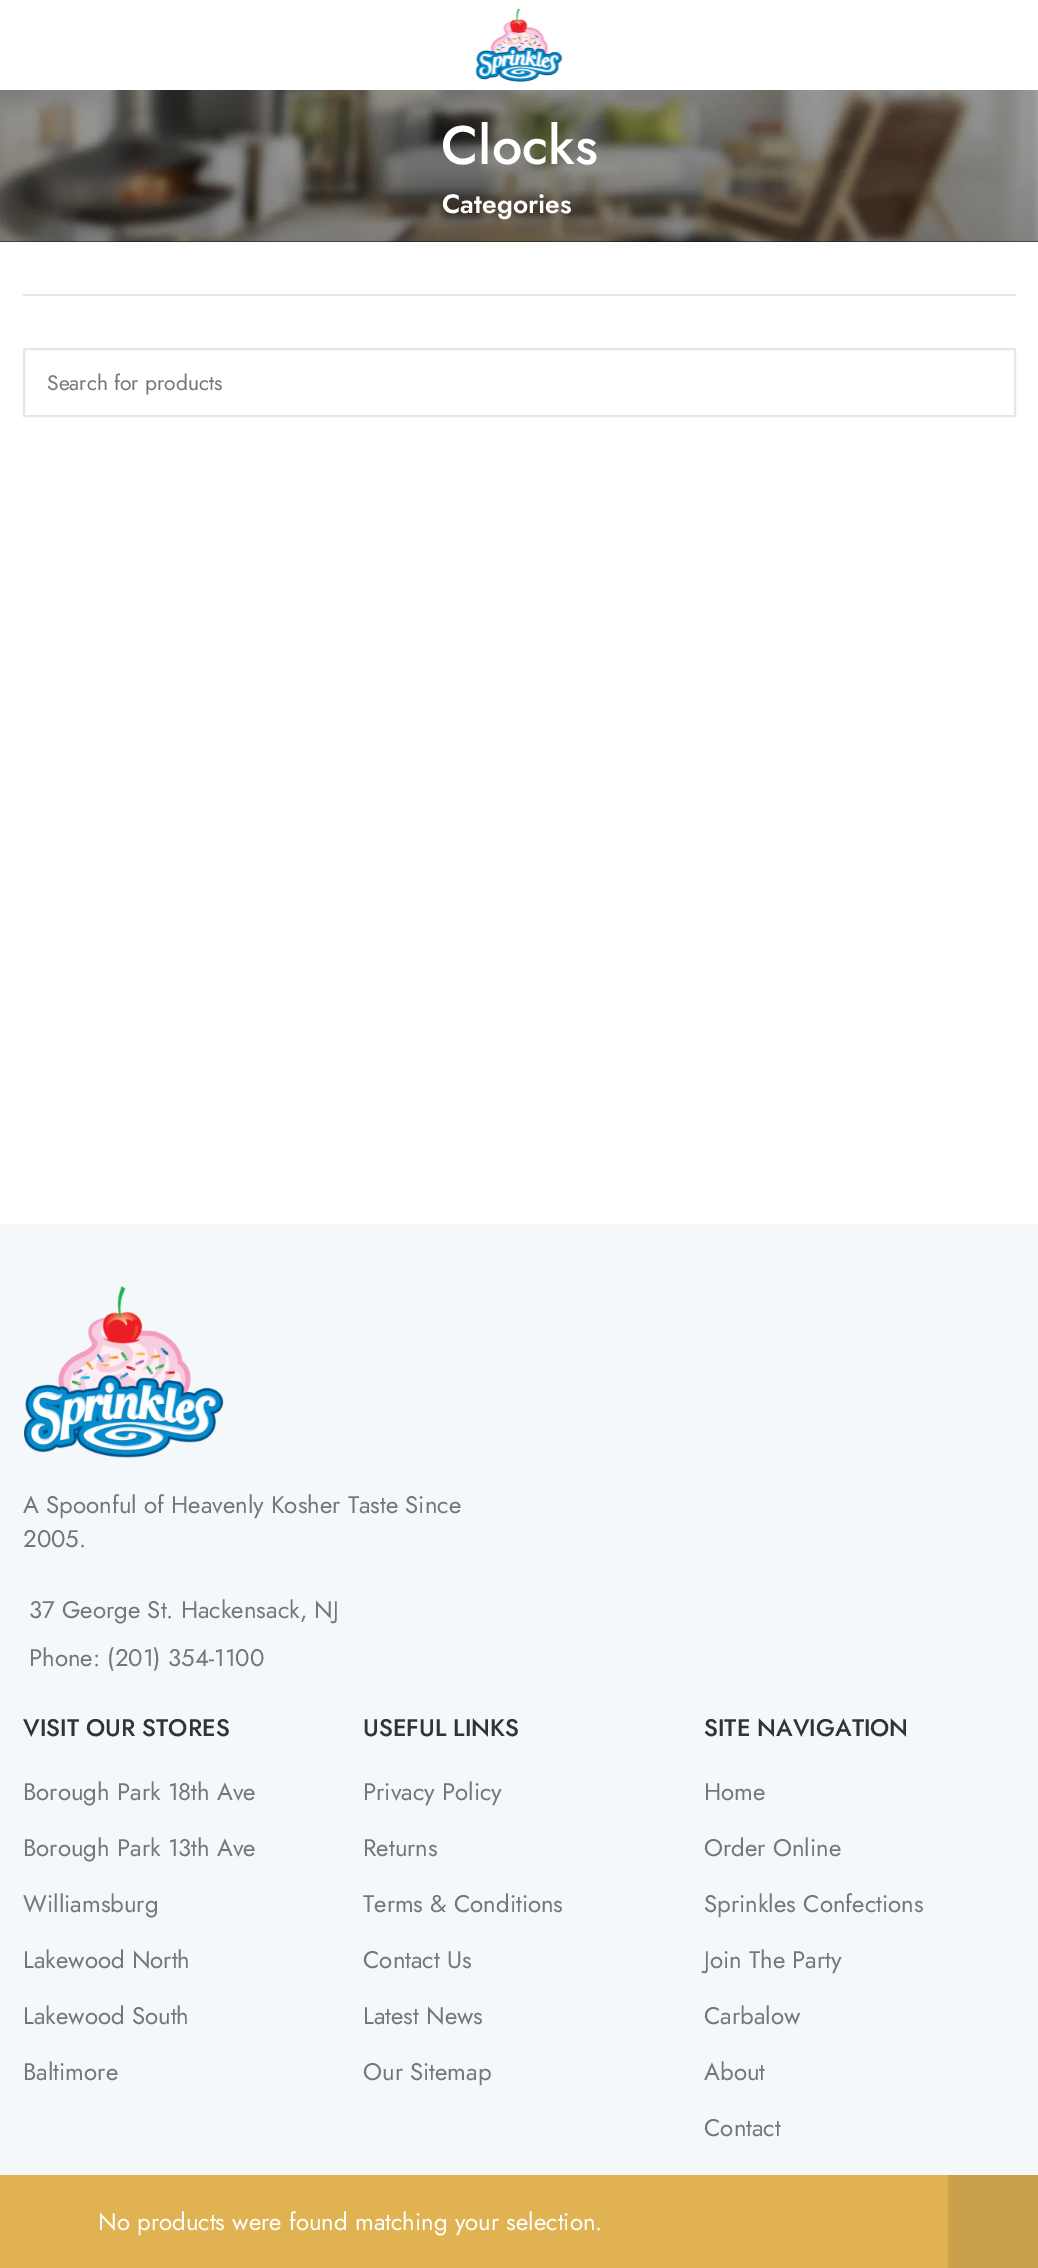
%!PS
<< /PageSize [1038 2268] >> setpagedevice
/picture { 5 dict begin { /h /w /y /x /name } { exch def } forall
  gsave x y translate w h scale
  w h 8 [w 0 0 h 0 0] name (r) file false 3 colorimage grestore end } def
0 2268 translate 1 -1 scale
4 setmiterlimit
1 setgray
0 0 1038 2268 rectfill
(img1.rgb) 475 8 88 74 picture
0.039 setgray
0 241 1038 1 rectfill
(img2.rgb) 0 90 1038 152 picture
/Jost-Medium [54 0 0 -54 0 0] selectfont
1 setgray
441 164 moveto (Clocks) show
/Jost-SemiBold [26.5 0 0 -26.5 0 0] selectfont
442 213 moveto (Categories) show
0.894 setgray
23 294 993 2 rectfill
0.902 setgray
2 setlinewidth
24 349 991 67 rectstroke
/Jost-Regular [21 0 0 -21 0 0] selectfont
0.463 setgray
47 390 moveto (Search for products) show
0.878 0.698 0.322 setrgbcolor
0 2175 948 93 rectfill
/Jost-Regular [24 0 0 -24 0 0] selectfont
1 setgray
98 2230 moveto (No products were found matching your selection.) show
0.792 0.627 0.29 setrgbcolor
948 2175 90 93 rectfill
0.957 0.973 0.984 setrgbcolor
0 1224 1038 951 rectfill
(img3.rgb) 24 1286 200 172 picture
0.463 setgray
23 1513 moveto (A Spoonful of Heavenly Kosher Taste Since) show
23 1547 moveto (2005.) show
29 1618 moveto (37 George St. Hackensack, NJ) show
29 1666 moveto (Phone: \(201\) 354-1100) show
/Jost-Medium [24 0 0 -24 0 0] selectfont
0.2 setgray
23 1736 moveto (VISIT OUR STORES) show
/Jost-Regular [24 0 0 -24 0 0] selectfont
0.463 setgray
23 1800 moveto (Borough Park 18th Ave) show
23 1856 moveto (Borough Park 13th Ave) show
23 1912 moveto (Williamsburg) show
23 1968 moveto (Lakewood North) show
23 2024 moveto (Lakewood South) show
23 2080 moveto (Baltimore) show
/Jost-Medium [24 0 0 -24 0 0] selectfont
0.2 setgray
363 1736 moveto (USEFUL LINKS) show
/Jost-Regular [24 0 0 -24 0 0] selectfont
0.463 setgray
363 1800 moveto (Privacy Policy) show
363 1856 moveto (Returns) show
363 1912 moveto (Terms & Conditions) show
363 1968 moveto (Contact Us) show
363 2024 moveto (Latest News) show
363 2080 moveto (Our Sitemap) show
/Jost-Medium [24 0 0 -24 0 0] selectfont
0.2 setgray
704 1736 moveto (SITE NAVIGATION) show
/Jost-Regular [24 0 0 -24 0 0] selectfont
0.463 setgray
704 1800 moveto (Home) show
704 1856 moveto (Order Online) show
704 1912 moveto (Sprinkles Confections) show
704 1968 moveto (Join The Party) show
704 2024 moveto (Carbalow) show
704 2080 moveto (About) show
704 2136 moveto (Contact) show
showpage
